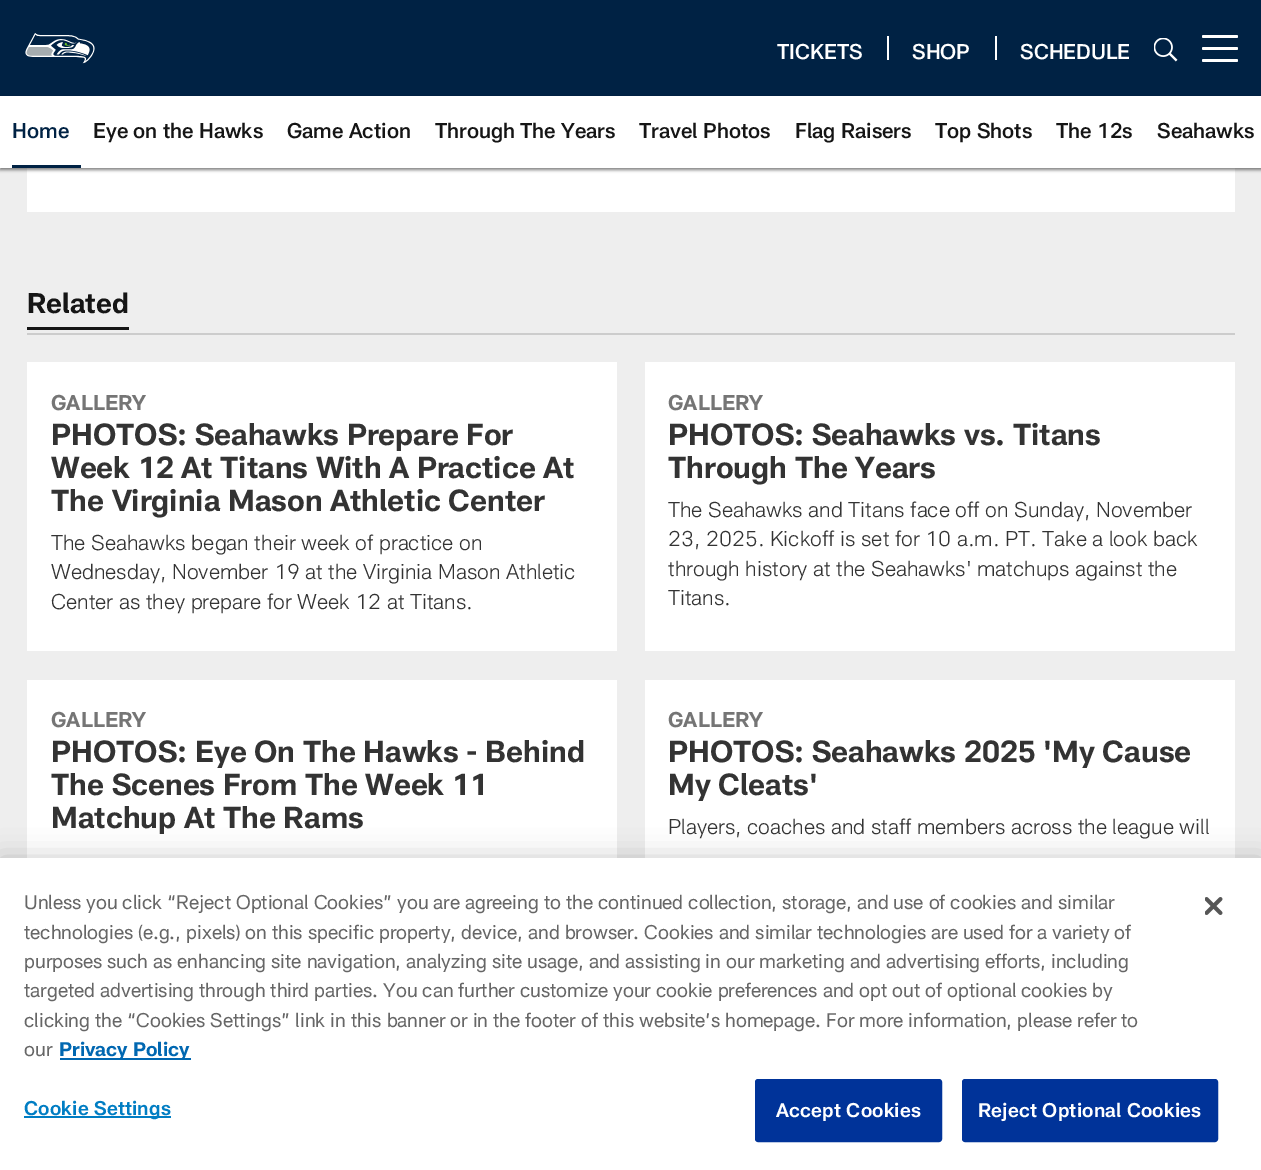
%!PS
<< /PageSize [1261 1170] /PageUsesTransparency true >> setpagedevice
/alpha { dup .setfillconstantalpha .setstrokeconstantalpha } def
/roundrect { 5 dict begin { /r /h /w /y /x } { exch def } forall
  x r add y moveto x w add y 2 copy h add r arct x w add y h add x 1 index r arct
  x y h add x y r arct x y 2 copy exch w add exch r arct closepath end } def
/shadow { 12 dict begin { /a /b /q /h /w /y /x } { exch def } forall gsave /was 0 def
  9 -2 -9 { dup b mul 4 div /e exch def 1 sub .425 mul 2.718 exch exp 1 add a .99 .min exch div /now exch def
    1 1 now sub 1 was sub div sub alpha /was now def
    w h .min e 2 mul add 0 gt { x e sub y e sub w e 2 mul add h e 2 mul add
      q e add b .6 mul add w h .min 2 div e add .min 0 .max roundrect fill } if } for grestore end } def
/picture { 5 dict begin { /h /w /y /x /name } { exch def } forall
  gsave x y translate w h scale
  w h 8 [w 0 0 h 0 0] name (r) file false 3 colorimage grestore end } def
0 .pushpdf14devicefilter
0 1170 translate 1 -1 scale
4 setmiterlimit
0.933 setgray
0 0 1261 1170 rectfill
0 0.133 0.267 setrgbcolor
0 0 1261 96 rectfill
(img1.rgb) 25 33 70 31 picture
/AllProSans-Medium [21 0 0 -21 0 0] selectfont
1 setgray
777 59 moveto (TICKETS) show
887 36 2 24 rectfill
912 59 moveto (SHOP) show
995 36 2 24 rectfill
1020 59 moveto (SCHEDULE) show
(img2.rgb) 1154 38 24 24 picture
1202 47 36 3 1.5 roundrect fill
1202 35 36 3 1.5 roundrect fill
1202 59 36 3 1.5 roundrect fill
27 168 1208 44 rectfill
0 setgray
0 98 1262 72 0 1.5 0.47 shadow
1 setgray
0 96 1261 72 rectfill
0 0.133 0.267 setrgbcolor
12 165 69 3 rectfill
12 138 moveto (Home) show
0.082 setgray
93 138 moveto (Eye on the Hawks) show
287 138 moveto (Game Action) show
435 138 moveto (Through The Years) show
639 138 moveto (Travel Photos) show
795 138 moveto (Flag Raisers) show
935 138 moveto (Top Shots) show
1056 138 moveto (The 12s) show
1157 138 moveto (Seahawks) show
0.8 setgray
27 333 1208 2 rectfill
0.082 setgray
27 327 102 3 rectfill
/AllProSans-Bold [28 0 0 -28 0 0] selectfont
27 313 moveto (Related) show
1 setgray
27 362 590 289 rectfill
/AllProSans-Bold [21 0 0 -21 0 0] selectfont
0.459 setgray
51 410 moveto (GALLERY) show
/AllProSans-Bold [30 0 0 -30 0 0] selectfont
0.2 setgray
51 445 moveto (PHOTOS: Seahawks Prepare For) show
51 478 moveto (Week 12 At Titans With A Practice At) show
51 511 moveto (The Virginia Mason Athletic Center) show
/AllProSans-Light [21 0 0 -21 0 0] selectfont
51 550 moveto (The Seahawks began their week of practice on) show
51 579 moveto (Wednesday, November 19 at the Virginia Mason Athletic) show
51 609 moveto (Center as they prepare for Week 12 at Titans.) show
1 setgray
645 362 590 289 rectfill
/AllProSans-Bold [21 0 0 -21 0 0] selectfont
0.459 setgray
668 410 moveto (GALLERY) show
/AllProSans-Bold [30 0 0 -30 0 0] selectfont
0.2 setgray
668 445 moveto (PHOTOS: Seahawks vs. Titans) show
668 478 moveto (Through The Years) show
/AllProSans-Light [21 0 0 -21 0 0] selectfont
668 517 moveto (The Seahawks and Titans face off on Sunday, November) show
668 546 moveto (23, 2025. Kickoff is set for 10 a.m. PT. Take a look back) show
668 576 moveto (through history at the Seahawks' matchups against the) show
668 605 moveto (Titans.) show
1 setgray
27 680 590 178 rectfill
/AllProSans-Bold [21 0 0 -21 0 0] selectfont
0.459 setgray
51 727 moveto (GALLERY) show
/AllProSans-Bold [30 0 0 -30 0 0] selectfont
0.2 setgray
51 762 moveto (PHOTOS: Eye On The Hawks - Behind) show
51 795 moveto (The Scenes From The Week 11) show
51 828 moveto (Matchup At The Rams) show
1 setgray
645 680 590 178 rectfill
/AllProSans-Bold [21 0 0 -21 0 0] selectfont
0.459 setgray
668 727 moveto (GALLERY) show
/AllProSans-Bold [30 0 0 -30 0 0] selectfont
0.2 setgray
668 762 moveto (PHOTOS: Seahawks 2025 'My Cause) show
668 795 moveto (My Cleats') show
/AllProSans-Light [21 0 0 -21 0 0] selectfont
668 834 moveto (Players, coaches and staff members across the league will) show
0 setgray
0 858 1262 312 0 13.5 0.2 shadow
1 setgray
0 858 1261 312 rectfill
/AllProSans-Regular [19.5 0 0 -19.5 0 0] selectfont
0.4 setgray
24 909 moveto (Unless you click “Reject Optional Cookies” you are agreeing to the continued collection, storage, and use of cookies and similar) show
24 939 moveto (technologies \(e.g., pixels\) on this specific property, device, and browser. Cookies and similar technologies are used for a variety of) show
24 968 moveto (purposes such as enhancing site navigation, analyzing site usage, and assisting in our marketing and advertising efforts, including) show
24 997 moveto (targeted advertising through third parties. You can further customize your cookie preferences and opt out of optional cookies by) show
24 1027 moveto (clicking the “Cookies Settings” link in this banner or in the footer of this website’s homepage. For more information, please refer to) show
24 1056 moveto (our) show
0 0.404 0.694 setrgbcolor
60 1058 131 2 rectfill
/AllProSans-Bold [19.5 0 0 -19.5 0 0] selectfont
59 1056 moveto (Privacy Policy) show
0 0.49 0.765 setrgbcolor
24 1116 147 2 rectfill
/AllProSans-SemiBold [19.5 0 0 -19.5 0 0] selectfont
24 1115 moveto 0.2 0 (Cookie Settings) ashow
0 0.2 0.6 setrgbcolor
756 1080 185 61 2 roundrect gsave fill grestore
2 setlinewidth
stroke
1 setgray
776 1117 moveto 0.2 0 (Accept Cookies) ashow
0 0.2 0.6 setrgbcolor
963 1080 254 61 2 roundrect gsave fill grestore
stroke
1 setgray
978 1117 moveto 0.2 0 (Reject Optional Cookies) ashow
(img3.rgb) 1205 897 18 18 picture
.poppdf14devicefilter showpage
